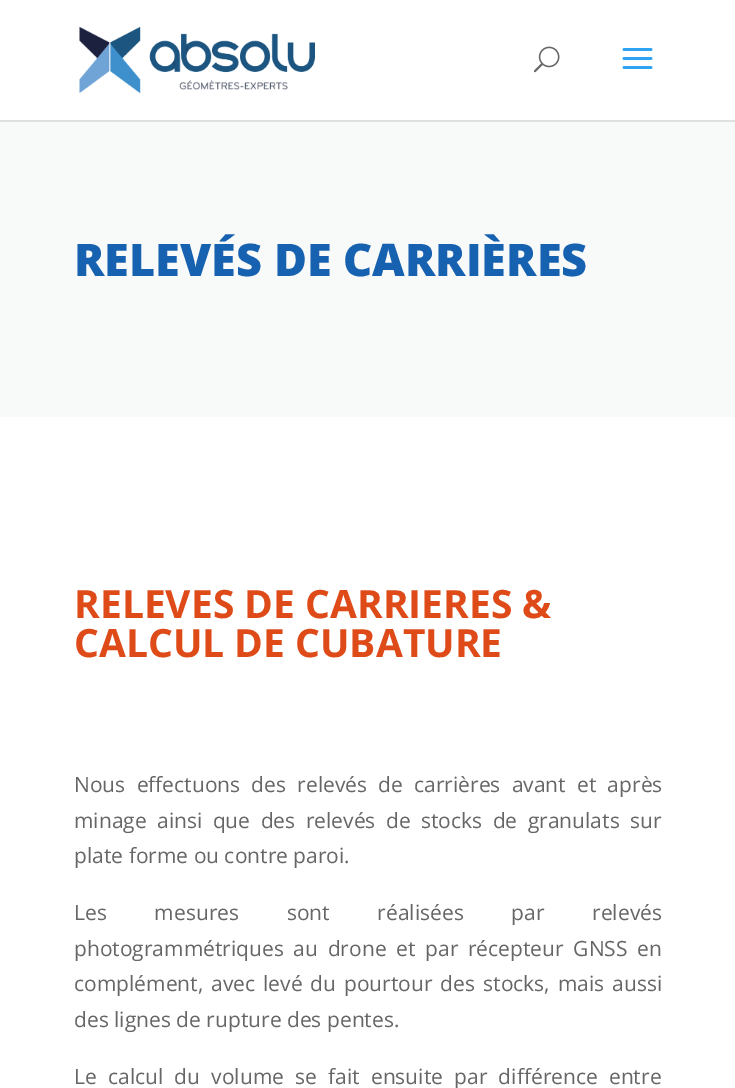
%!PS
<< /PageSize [735 1088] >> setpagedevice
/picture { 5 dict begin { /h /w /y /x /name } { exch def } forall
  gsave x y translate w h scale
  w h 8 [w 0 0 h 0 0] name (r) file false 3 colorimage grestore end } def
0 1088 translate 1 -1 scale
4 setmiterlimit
0.973 0.976 0.976 setrgbcolor
0 0 735 1088 rectfill
0.875 0.878 0.878 setrgbcolor
0 120 735 2 rectfill
1 setgray
0 0 735 120 rectfill
(img1.rgb) 79 27 236 66 picture
(img2.rgb) 533 46 27 27 picture
(img3.rgb) 622 48 31 21 picture
/OpenSans-ExtraBold [45 0 0 -45 0 0] selectfont
0.09 0.38 0.694 setrgbcolor
74 276 moveto (RELEVÉS DE CARRIÈRES) show
1 setgray
0 417 735 671 rectfill
/OpenSans-Bold [39 0 0 -39 0 0] selectfont
0.871 0.29 0.094 setrgbcolor
74 618 moveto (RELEVES DE CARRIERES &) show
74 657 moveto (CALCUL DE CUBATURE) show
/OpenSans-Regular [21 0 0 -21 0 0] selectfont
0.4 setgray
74 792 moveto 5.75 0 32 (Nous effectuons des relevés de carrières avant et après) widthshow
74 828 moveto 5 0 32 (minage ainsi que des relevés de stocks de granulats sur) widthshow
74 863 moveto (plate forme ou contre paroi.) show
74 920 moveto 42.25 0 32 (Les mesures sont réalisées par relevés) widthshow
74 956 moveto 4.25 0 32 (photogrammétriques au drone et par récepteur GNSS en) widthshow
74 991 moveto 2.5 0 32 (complément, avec levé du pourtour des stocks, mais aussi) widthshow
74 1027 moveto (des lignes de rupture des pentes.) show
74 1084 moveto 5.75 0 32 (Le calcul du volume se fait ensuite par différence entre) widthshow
showpage
